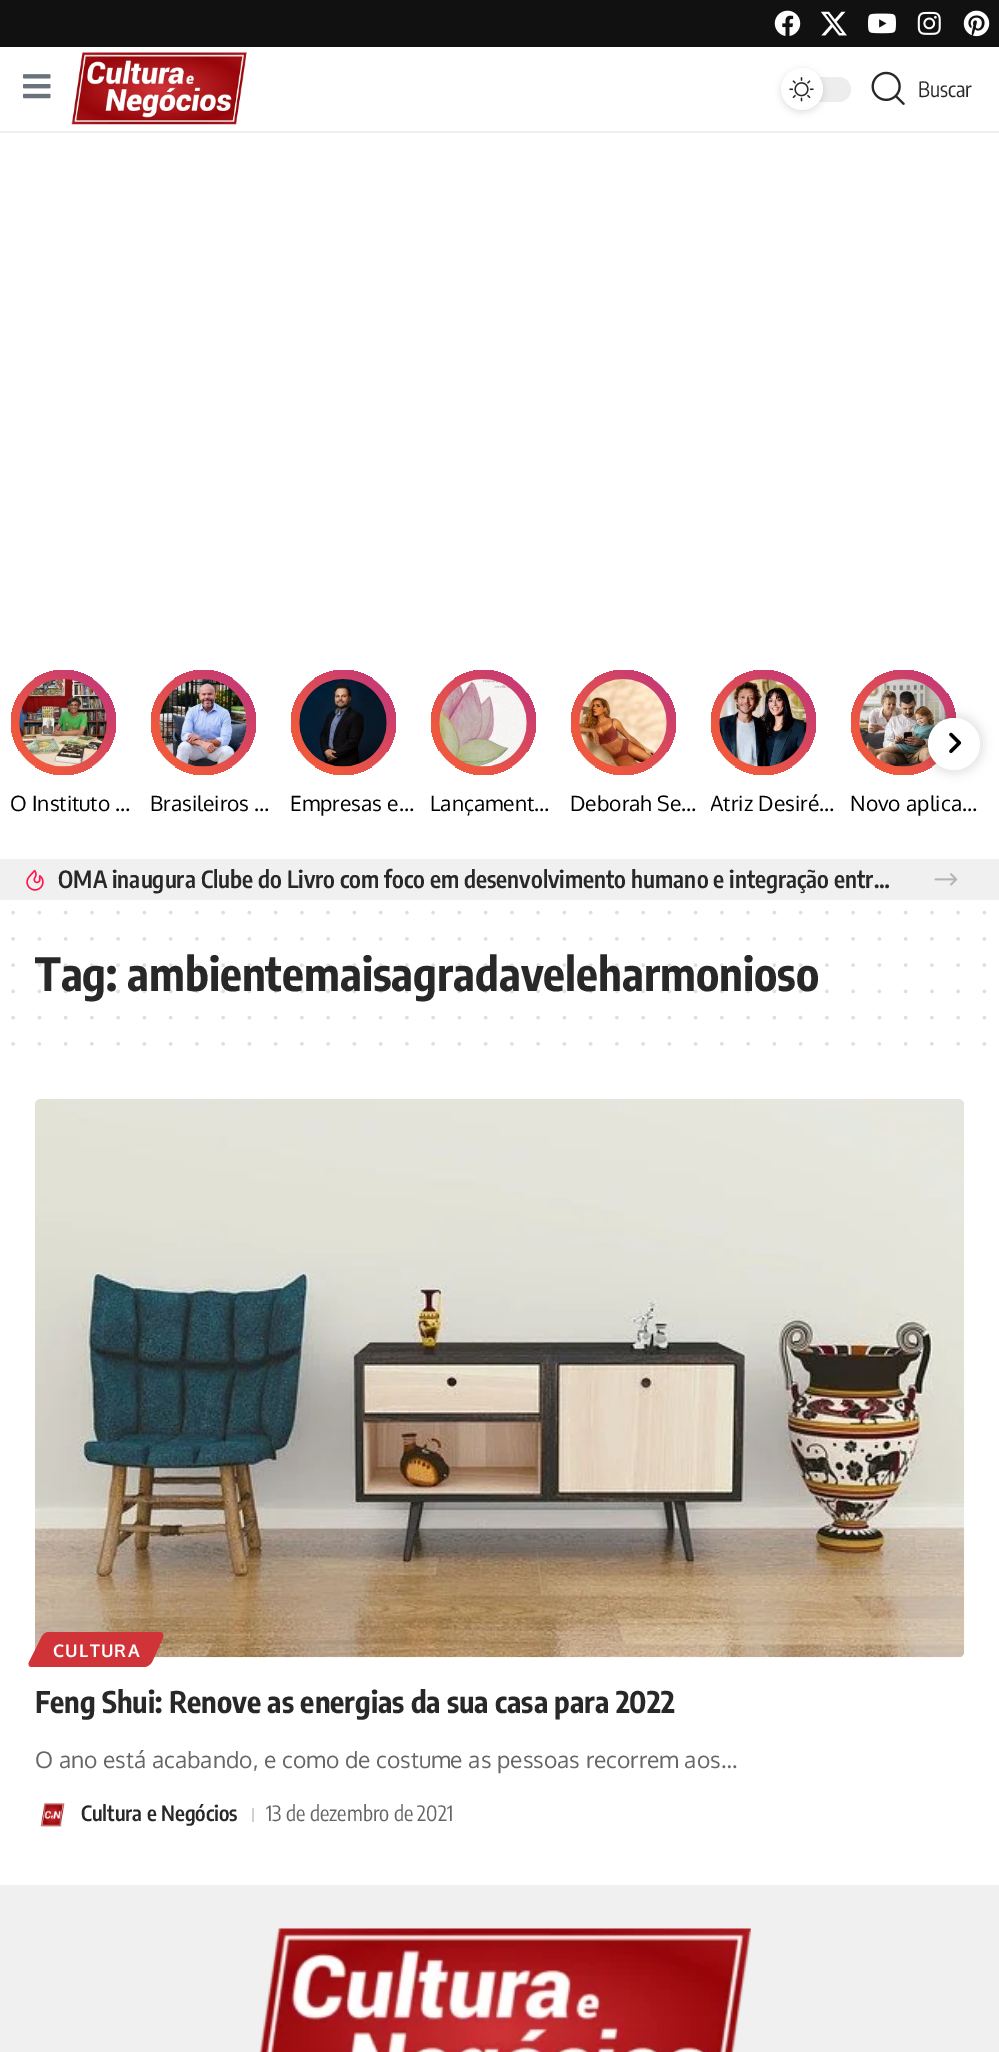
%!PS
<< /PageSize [999 2052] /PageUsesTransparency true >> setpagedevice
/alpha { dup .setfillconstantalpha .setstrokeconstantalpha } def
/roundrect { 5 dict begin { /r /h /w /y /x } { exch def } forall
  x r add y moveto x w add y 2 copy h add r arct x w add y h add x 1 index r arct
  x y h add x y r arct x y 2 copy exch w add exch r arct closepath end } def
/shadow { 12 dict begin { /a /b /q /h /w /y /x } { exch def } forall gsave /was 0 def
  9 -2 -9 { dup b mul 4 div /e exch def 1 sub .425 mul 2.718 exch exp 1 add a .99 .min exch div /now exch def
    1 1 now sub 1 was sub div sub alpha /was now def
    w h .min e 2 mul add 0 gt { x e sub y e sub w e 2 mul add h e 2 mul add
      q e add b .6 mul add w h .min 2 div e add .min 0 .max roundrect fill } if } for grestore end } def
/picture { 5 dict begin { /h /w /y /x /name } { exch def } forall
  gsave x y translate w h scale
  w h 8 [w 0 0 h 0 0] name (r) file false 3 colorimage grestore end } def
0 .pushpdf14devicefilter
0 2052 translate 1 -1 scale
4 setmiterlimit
1 setgray
0 0 999 2052 rectfill
0.067 setgray
0 0 999 47 rectfill
(img1.rgb) 774 10 27 26 picture
(img2.rgb) 821 11 26 25 picture
(img3.rgb) 868 13 28 21 picture
(img4.rgb) 917 11 24 24 picture
(img5.rgb) 963 10 27 27 picture
0.941 setgray
0 131 999 2 rectfill
(img6.rgb) 22 74 29 25 picture
(img7.rgb) 71 52 176 73 picture
0.929 setgray
781 77 70 25 12.5 roundrect fill
0 setgray
781 70 42 42 21 3.5 0.12 shadow
1 setgray
newpath 802 89 21 0 360 arc closepath fill
(img8.rgb) 789 77 25 25 picture
(img9.rgb) 871 71 34 34 picture
/EncodeSansCondensed-Regular [21 0 0 -21 0 0] selectfont
0.157 setgray
918 97 moveto (Buscar) show
gsave newpath 903.5 722.5 52.5 0 360 arc closepath clip newpath
<< /ShadingType 2 /ColorSpace /DeviceRGB /Coords [851 775 956 670] /Extend [true true] /Function << /FunctionType 3 /Domain [0 1] /Functions [<< /FunctionType 2 /Domain [0 1] /C0 [0.933 0.345 0.247] /C1 [0.933 0.345 0.247] /N 1 >> << /FunctionType 2 /Domain [0 1] /C0 [0.933 0.345 0.247] /C1 [0.741 0.2 0.506] /N 1 >>] /Bounds [0.25] /Encode [0 1 0 1] >> >> shfill grestore
(img17.rgb) 859 679 88 88 picture
0 setgray
924 714 60 60 30 4.5 0.1 shadow
1 setgray
newpath 954 744 26 0 360 arc closepath fill
(img10.rgb) 949 732 13 21 picture
gsave newpath 63.5 722.5 52.5 0 360 arc closepath clip newpath
<< /ShadingType 2 /ColorSpace /DeviceRGB /Coords [11 775 116 670] /Extend [true true] /Function << /FunctionType 3 /Domain [0 1] /Functions [<< /FunctionType 2 /Domain [0 1] /C0 [0.933 0.345 0.247] /C1 [0.933 0.345 0.247] /N 1 >> << /FunctionType 2 /Domain [0 1] /C0 [0.933 0.345 0.247] /C1 [0.741 0.2 0.506] /N 1 >>] /Bounds [0.25] /Encode [0 1 0 1] >> >> shfill grestore
(img11.rgb) 19 679 88 88 picture
/Oxygen-Regular [21 0 0 -21 0 0] selectfont
0 setgray
10 811 moveto (O Instituto …) show
gsave newpath 203.5 722.5 52.5 0 360 arc closepath clip newpath
<< /ShadingType 2 /ColorSpace /DeviceRGB /Coords [151 775 256 670] /Extend [true true] /Function << /FunctionType 3 /Domain [0 1] /Functions [<< /FunctionType 2 /Domain [0 1] /C0 [0.933 0.345 0.247] /C1 [0.933 0.345 0.247] /N 1 >> << /FunctionType 2 /Domain [0 1] /C0 [0.933 0.345 0.247] /C1 [0.741 0.2 0.506] /N 1 >>] /Bounds [0.25] /Encode [0 1 0 1] >> >> shfill grestore
(img12.rgb) 159 679 88 88 picture
150 811 moveto (Brasileiros …) show
gsave newpath 343.5 722.5 52.5 0 360 arc closepath clip newpath
<< /ShadingType 2 /ColorSpace /DeviceRGB /Coords [291 775 396 670] /Extend [true true] /Function << /FunctionType 3 /Domain [0 1] /Functions [<< /FunctionType 2 /Domain [0 1] /C0 [0.933 0.345 0.247] /C1 [0.933 0.345 0.247] /N 1 >> << /FunctionType 2 /Domain [0 1] /C0 [0.933 0.345 0.247] /C1 [0.741 0.2 0.506] /N 1 >>] /Bounds [0.25] /Encode [0 1 0 1] >> >> shfill grestore
(img13.rgb) 299 679 88 88 picture
290 811 moveto (Empresas e…) show
gsave newpath 483.5 722.5 52.5 0 360 arc closepath clip newpath
<< /ShadingType 2 /ColorSpace /DeviceRGB /Coords [431 775 536 670] /Extend [true true] /Function << /FunctionType 3 /Domain [0 1] /Functions [<< /FunctionType 2 /Domain [0 1] /C0 [0.933 0.345 0.247] /C1 [0.933 0.345 0.247] /N 1 >> << /FunctionType 2 /Domain [0 1] /C0 [0.933 0.345 0.247] /C1 [0.741 0.2 0.506] /N 1 >>] /Bounds [0.25] /Encode [0 1 0 1] >> >> shfill grestore
(img14.rgb) 439 679 88 88 picture
430 811 moveto (Lançament…) show
gsave newpath 623.5 722.5 52.5 0 360 arc closepath clip newpath
<< /ShadingType 2 /ColorSpace /DeviceRGB /Coords [571 775 676 670] /Extend [true true] /Function << /FunctionType 3 /Domain [0 1] /Functions [<< /FunctionType 2 /Domain [0 1] /C0 [0.933 0.345 0.247] /C1 [0.933 0.345 0.247] /N 1 >> << /FunctionType 2 /Domain [0 1] /C0 [0.933 0.345 0.247] /C1 [0.741 0.2 0.506] /N 1 >>] /Bounds [0.25] /Encode [0 1 0 1] >> >> shfill grestore
(img15.rgb) 579 679 88 88 picture
570 811 moveto (Deborah Se…) show
gsave newpath 763.5 722.5 52.5 0 360 arc closepath clip newpath
<< /ShadingType 2 /ColorSpace /DeviceRGB /Coords [711 775 816 670] /Extend [true true] /Function << /FunctionType 3 /Domain [0 1] /Functions [<< /FunctionType 2 /Domain [0 1] /C0 [0.933 0.345 0.247] /C1 [0.933 0.345 0.247] /N 1 >> << /FunctionType 2 /Domain [0 1] /C0 [0.933 0.345 0.247] /C1 [0.741 0.2 0.506] /N 1 >>] /Bounds [0.25] /Encode [0 1 0 1] >> >> shfill grestore
(img16.rgb) 719 679 88 88 picture
gsave
711 793 131 23 rectclip
710 811 moveto (Atriz Desiré…) show
grestore
850 811 moveto (Novo aplica…) show
0.941 setgray
0 859 999 41 rectfill
(img18.rgb) 26 869 18 22 picture
/EncodeSansCondensed-SemiBold [23.6 0 0 -23.6 0 0] selectfont
0.157 setgray
58 888 moveto (OMA inaugura Clube do Livro com foco em desenvolvimento humano e integração entr…) show
(img19.rgb) 934 873 24 13 picture
0.875 setgray
3.5 setlinewidth
1 setlinecap
[0 26.25] 0 setdash
newpath 13.1 912.6 moveto 984.7 912.6 lineto stroke
newpath 13.1 938.9 moveto 984.7 938.9 lineto stroke
/EncodeSansCondensed-Bold [45.5 0 0 -45.5 0 0] selectfont
0.157 setgray
35 991 moveto (Tag: ambientemaisagradaveleharmonioso) show
0.15 alpha
newpath 13.1 965.1 moveto 984.7 965.1 lineto stroke
newpath 13.1 991.4 moveto 984.7 991.4 lineto stroke
1 alpha
0.875 setgray
newpath 13.1 1017.6 moveto 984.7 1017.6 lineto stroke
newpath 13.1 1043.9 moveto 984.7 1043.9 lineto stroke
(img20.rgb) 35 1099 930 559 picture
0.816 0.204 0.22 setrgbcolor
newpath 48 1632 moveto 160 1632 lineto 163 1632 164 1635 163 1638 curveto 152 1662 lineto 150 1665 147 1667 144 1667 curveto 32 1667 lineto 29 1667 28 1665 29 1662 curveto 41 1638 lineto 42 1635 46 1632 48 1632 curveto closepath fill
/Oxygen-Bold [17.5 0 0 -17.5 0 0] selectfont
1 setgray
53 1657 moveto 1.25 0 (CULTURA) ashow
/EncodeSansCondensed-Bold [29.75 0 0 -29.75 0 0] selectfont
0.157 setgray
35 1713 moveto (Feng Shui: Renove as energias da sua casa para 2022) show
/Oxygen-Regular [22.75 0 0 -22.75 0 0] selectfont
0.4 setgray
35 1768 moveto (O ano está acabando, e como de costume as pessoas recorrem aos…) show
(img21.rgb) 40 1802 25 25 picture
/EncodeSansCondensed-SemiBold [21 0 0 -21 0 0] selectfont
0.157 setgray
81 1821 moveto (Cultura e Negócios) show
0.82 setgray
252 1808 2 14 rectfill
/EncodeSansCondensed-Regular [21 0 0 -21 0 0] selectfont
0.4 setgray
266 1821 moveto (13 de dezembro de 2021) show
0.941 setgray
0 1885 999 167 rectfill
(img22.rgb) 259 1928 492 124 picture
.poppdf14devicefilter showpage
